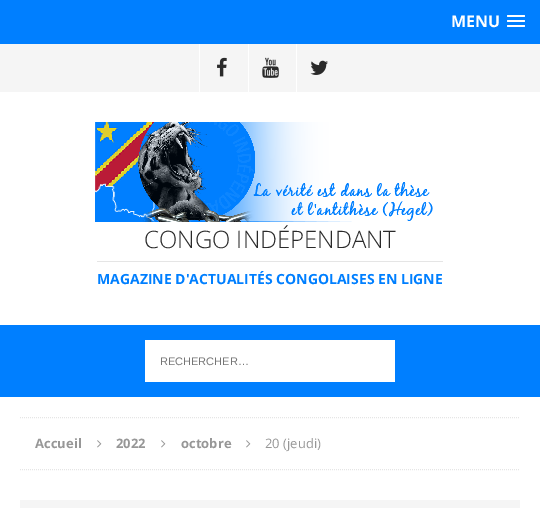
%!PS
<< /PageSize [540 508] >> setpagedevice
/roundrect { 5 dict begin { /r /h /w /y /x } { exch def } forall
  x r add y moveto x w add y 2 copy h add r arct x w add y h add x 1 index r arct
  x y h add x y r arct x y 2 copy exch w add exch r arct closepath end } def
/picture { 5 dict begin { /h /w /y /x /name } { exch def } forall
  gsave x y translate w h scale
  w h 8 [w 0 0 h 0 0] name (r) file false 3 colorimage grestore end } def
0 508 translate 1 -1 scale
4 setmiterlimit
0 0.498 1 setrgbcolor
0 0 540 508 rectfill
/OpenSans-Bold [16 0 0 -16 0 0] selectfont
1 setgray
451 27 moveto (MENU) show
507 15 18 2 1 roundrect fill
507 20 18 2 1 roundrect fill
507 25 18 2 1 roundrect fill
0.961 setgray
0 44 540 48 rectfill
1 setgray
199 44 1 48 rectfill
(img1.rgb) 217 57 10 20 picture
248 44 1 48 rectfill
(img2.rgb) 262 57 17 21 picture
296 44 1 48 rectfill
(img3.rgb) 310 60 18 15 picture
0 92 540 233 rectfill
(img4.rgb) 95 122 338 100 picture
/OpenSans-Light [24 0 0 -24 0 0] selectfont
0.165 setgray
144 248 moveto (CONGO INDÉPENDANT) show
0.898 setgray
97 261 346 1 rectfill
/OpenSans-Bold [14 0 0 -14 0 0] selectfont
0 0.498 1 setrgbcolor
97 284 moveto (MAGAZINE D'ACTUALITÉS CONGOLAISES EN LIGNE) show
1 setgray
145 340 250 42 rectfill
/LiberationSans-Regular [11 0 0 -11 0 0] selectfont
0.459 setgray
160 365 moveto (RECHERCHER…) show
1 setgray
0 397 540 111 rectfill
0.898 setgray
[1 1] 0 setdash
newpath 20 417.5 moveto 520 417.5 lineto stroke
newpath 20 469.5 moveto 520 469.5 lineto stroke
/OpenSans-Bold [13 0 0 -13 0 0] selectfont
0.592 setgray
35 448 moveto (Accueil) show
(img5.rgb) 97 440 5 8 picture
116 448 moveto (2022) show
(img5.rgb) 161 440 5 8 picture
181 448 moveto (octobre) show
(img5.rgb) 246 440 5 8 picture
/OpenSans-Regular [13 0 0 -13 0 0] selectfont
265 448 moveto (20 \(jeudi\)) show
0.961 setgray
20 500 500 8 rectfill
showpage
